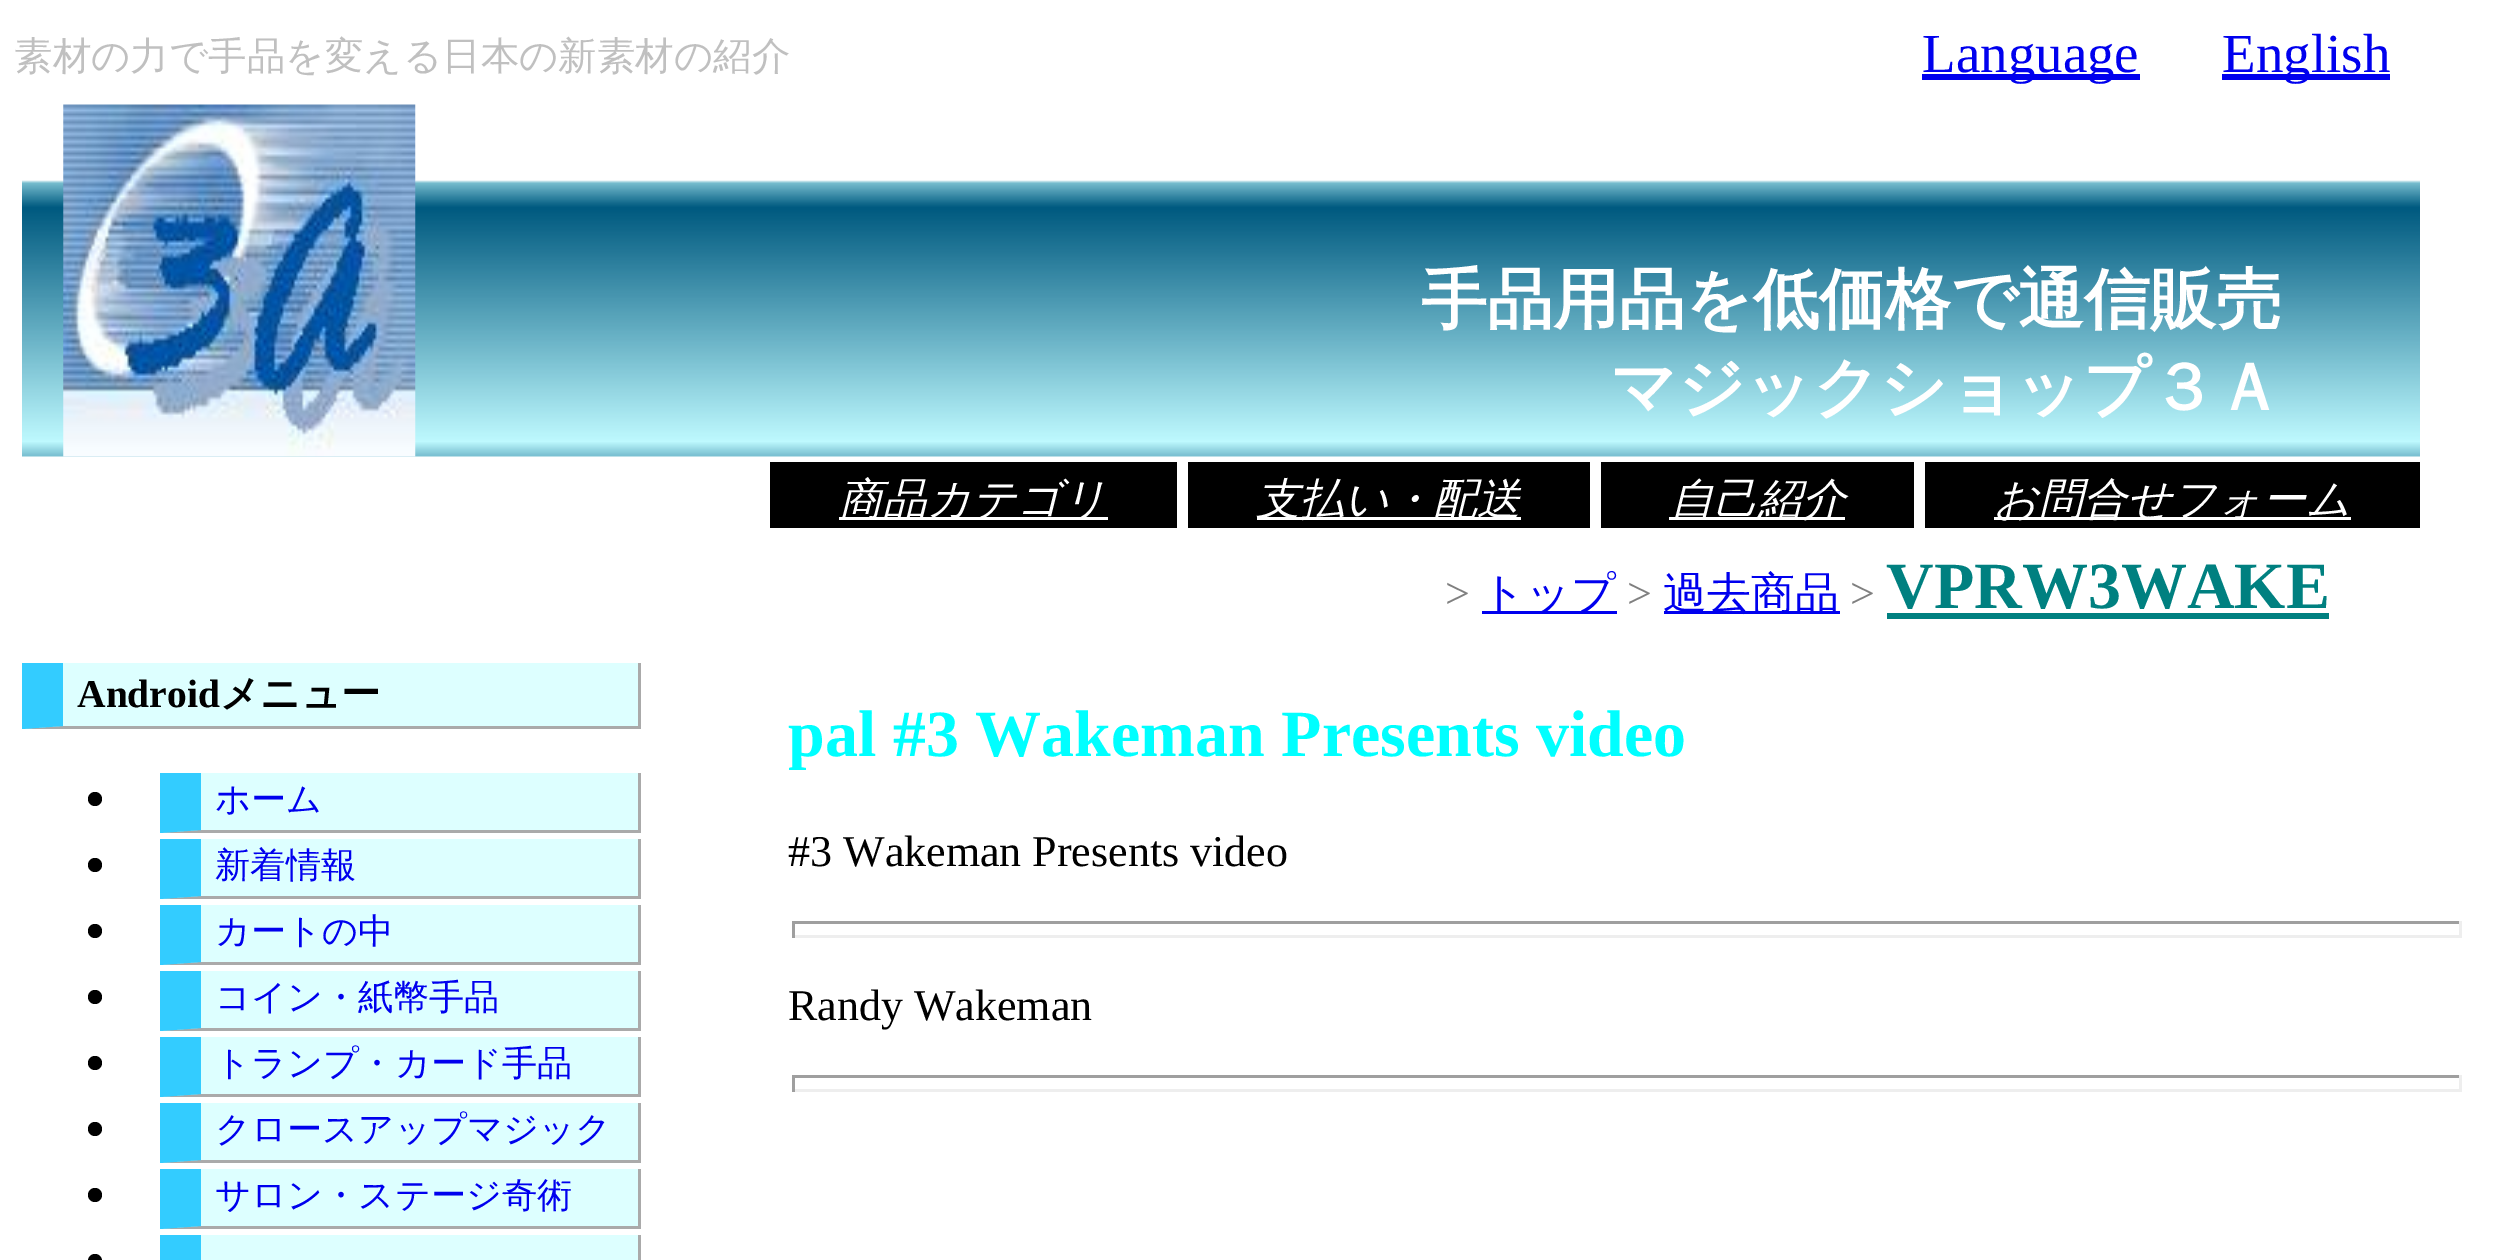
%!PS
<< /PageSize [2515 1260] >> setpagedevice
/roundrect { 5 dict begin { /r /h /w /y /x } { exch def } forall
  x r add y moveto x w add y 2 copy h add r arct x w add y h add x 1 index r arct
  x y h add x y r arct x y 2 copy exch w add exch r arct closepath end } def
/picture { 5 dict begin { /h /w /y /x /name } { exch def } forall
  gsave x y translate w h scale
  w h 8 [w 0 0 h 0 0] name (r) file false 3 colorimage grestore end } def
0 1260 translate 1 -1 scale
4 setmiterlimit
1 setgray
0 0 2515 1260 rectfill
/WenQuanYiZenHei-Medium [38.5 0 0 -38.5 0 0] selectfont
0.753 setgray
14 69 moveto (素材の力で手品を変える日本の新素材の紹介) show
0 0 0.933 setrgbcolor
1922 74 218 6 rectfill
/LiberationSerif-Regular [55 0 0 -55 0 0] selectfont
1922 72 moveto (Language) show
2222 74 168 6 rectfill
2222 72 moveto (English) show
(img1.rgb) 22 180 2398 277 picture
(img2.rgb) 63 104 353 353 picture
/WenQuanYiZenHei-Bold [66 0 0 -66 0 0] selectfont
1 setgray
1421 322 moveto (手品用品を低価格で通信販売) show
1610 410 moveto (マジックショップ３Ａ) show
0 setgray
770 462 407 66 rectfill
1 setgray
839 517 269 3 rectfill
/WenQuanYiZenHei-MediumItalic [44 0 0 -44 0 0] selectfont
839 514 moveto (商品カテゴリ) show
0 setgray
1188 462 402 66 rectfill
1 setgray
1257 517 264 3 rectfill
1256 514 moveto (支払い・配送) show
0 setgray
1601 462 313 66 rectfill
1 setgray
1669 517 176 3 rectfill
1670 514 moveto (自己紹介) show
0 setgray
1925 462 495 66 rectfill
1 setgray
1994 517 357 3 rectfill
1994 514 moveto (お問合せフォーム) show
/LiberationSerif-Regular [44 0 0 -44 0 0] selectfont
0.502 setgray
1445 608 moveto (>) show
0 0 0.933 setrgbcolor
1482 611 135 3 rectfill
/WenQuanYiZenHei-Medium [44 0 0 -44 0 0] selectfont
1481 608 moveto (トップ) show
/LiberationSerif-Regular [44 0 0 -44 0 0] selectfont
0.502 setgray
1627 608 moveto (>) show
0 0 0.933 setrgbcolor
1664 611 176 3 rectfill
/WenQuanYiZenHei-Medium [44 0 0 -44 0 0] selectfont
1663 608 moveto (過去商品) show
/LiberationSerif-Regular [44 0 0 -44 0 0] selectfont
0.502 setgray
1850 608 moveto (>) show
/LiberationSerif-Bold [66 0 0 -66 0 0] selectfont
0 0.502 0.502 setrgbcolor
1886 608 moveto (VPRW3WAKE) show
1887 613 442 6 rectfill
0.867 1 1 setrgbcolor
22 663 616 66 rectfill
0.667 setgray
638 663 3 66 rectfill
newpath 641 729 moveto 22 729 lineto 63 726 lineto 638 726 lineto closepath fill
0.2 0.8 1 setrgbcolor
newpath 22 729 moveto 22 663 lineto 63 663 lineto 63 726 lineto closepath fill
/LiberationSerif-Bold [39.5 0 0 -39.5 0 0] selectfont
0 setgray
77 707 moveto (Android) show
/WenQuanYiZenHei-Bold [39.5 0 0 -39.5 0 0] selectfont
220 707 moveto (メニュー) show
newpath 95 799 7 0 360 arc closepath fill
0.867 1 1 setrgbcolor
160 773 478 60 rectfill
0.667 setgray
638 773 3 60 rectfill
newpath 641 833 moveto 160 833 lineto 201 830 lineto 638 830 lineto closepath fill
0.2 0.8 1 setrgbcolor
newpath 160 833 moveto 160 773 lineto 201 773 lineto 201 830 lineto closepath fill
/WenQuanYiZenHei-Medium [35.25 0 0 -35.25 0 0] selectfont
0 0 0.933 setrgbcolor
215 811 moveto (ホーム) show
0 setgray
newpath 95 865 7 0 360 arc closepath fill
0.867 1 1 setrgbcolor
160 839 478 60 rectfill
0.667 setgray
638 839 3 60 rectfill
newpath 641 899 moveto 160 899 lineto 201 896 lineto 638 896 lineto closepath fill
0.2 0.8 1 setrgbcolor
newpath 160 899 moveto 160 839 lineto 201 839 lineto 201 896 lineto closepath fill
0 0 0.933 setrgbcolor
215 877 moveto (新着情報) show
0 setgray
newpath 95 931 7 0 360 arc closepath fill
0.867 1 1 setrgbcolor
160 905 478 60 rectfill
0.667 setgray
638 905 3 60 rectfill
newpath 641 965 moveto 160 965 lineto 201 962 lineto 638 962 lineto closepath fill
0.2 0.8 1 setrgbcolor
newpath 160 965 moveto 160 905 lineto 201 905 lineto 201 962 lineto closepath fill
0 0 0.933 setrgbcolor
215 943 moveto (カートの中) show
0 setgray
newpath 95 997 7 0 360 arc closepath fill
0.867 1 1 setrgbcolor
160 971 478 60 rectfill
0.667 setgray
638 971 3 60 rectfill
newpath 641 1031 moveto 160 1031 lineto 201 1028 lineto 638 1028 lineto closepath fill
0.2 0.8 1 setrgbcolor
newpath 160 1031 moveto 160 971 lineto 201 971 lineto 201 1028 lineto closepath fill
0 0 0.933 setrgbcolor
215 1009 moveto (コイン・紙幣手品) show
0 setgray
newpath 95 1063 7 0 360 arc closepath fill
0.867 1 1 setrgbcolor
160 1037 478 60 rectfill
0.667 setgray
638 1037 3 60 rectfill
newpath 641 1097 moveto 160 1097 lineto 201 1094 lineto 638 1094 lineto closepath fill
0.2 0.8 1 setrgbcolor
newpath 160 1097 moveto 160 1037 lineto 201 1037 lineto 201 1094 lineto closepath fill
0 0 0.933 setrgbcolor
215 1075 moveto (トランプ・カード手品) show
0 setgray
newpath 95 1129 7 0 360 arc closepath fill
0.867 1 1 setrgbcolor
160 1103 478 60 rectfill
0.667 setgray
638 1103 3 60 rectfill
newpath 641 1163 moveto 160 1163 lineto 201 1160 lineto 638 1160 lineto closepath fill
0.2 0.8 1 setrgbcolor
newpath 160 1163 moveto 160 1103 lineto 201 1103 lineto 201 1160 lineto closepath fill
0 0 0.933 setrgbcolor
215 1141 moveto (クロースアップマジック) show
0 setgray
newpath 95 1195 7 0 360 arc closepath fill
0.867 1 1 setrgbcolor
160 1169 478 60 rectfill
0.667 setgray
638 1169 3 60 rectfill
newpath 641 1229 moveto 160 1229 lineto 201 1226 lineto 638 1226 lineto closepath fill
0.2 0.8 1 setrgbcolor
newpath 160 1229 moveto 160 1169 lineto 201 1169 lineto 201 1226 lineto closepath fill
0 0 0.933 setrgbcolor
215 1207 moveto (サロン・ステージ奇術) show
0 setgray
88 1254 14 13 7 roundrect fill
0.867 1 1 setrgbcolor
201 1235 437 25 rectfill
0.667 setgray
638 1235 3 25 rectfill
0.2 0.8 1 setrgbcolor
newpath 160 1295 moveto 160 1235 lineto 201 1235 lineto 201 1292 lineto closepath fill
/LiberationSerif-Bold [66 0 0 -66 0 0] selectfont
0 1 1 setrgbcolor
788 756 moveto (pal #3 Wakeman Presents video) show
/LiberationSerif-Regular [44 0 0 -44 0 0] selectfont
0 setgray
788 866 moveto (#3 Wakeman Presents video) show
0.624 setgray
792 921 1669 3 rectfill
0.933 setgray
2459 921 3 17 rectfill
792 935 1669 3 rectfill
0.624 setgray
792 921 3 17 rectfill
0 setgray
788 1020 moveto (Randy Wakeman) show
0.624 setgray
792 1075 1669 3 rectfill
0.933 setgray
2459 1075 3 17 rectfill
792 1089 1669 3 rectfill
0.624 setgray
792 1075 3 17 rectfill
showpage
